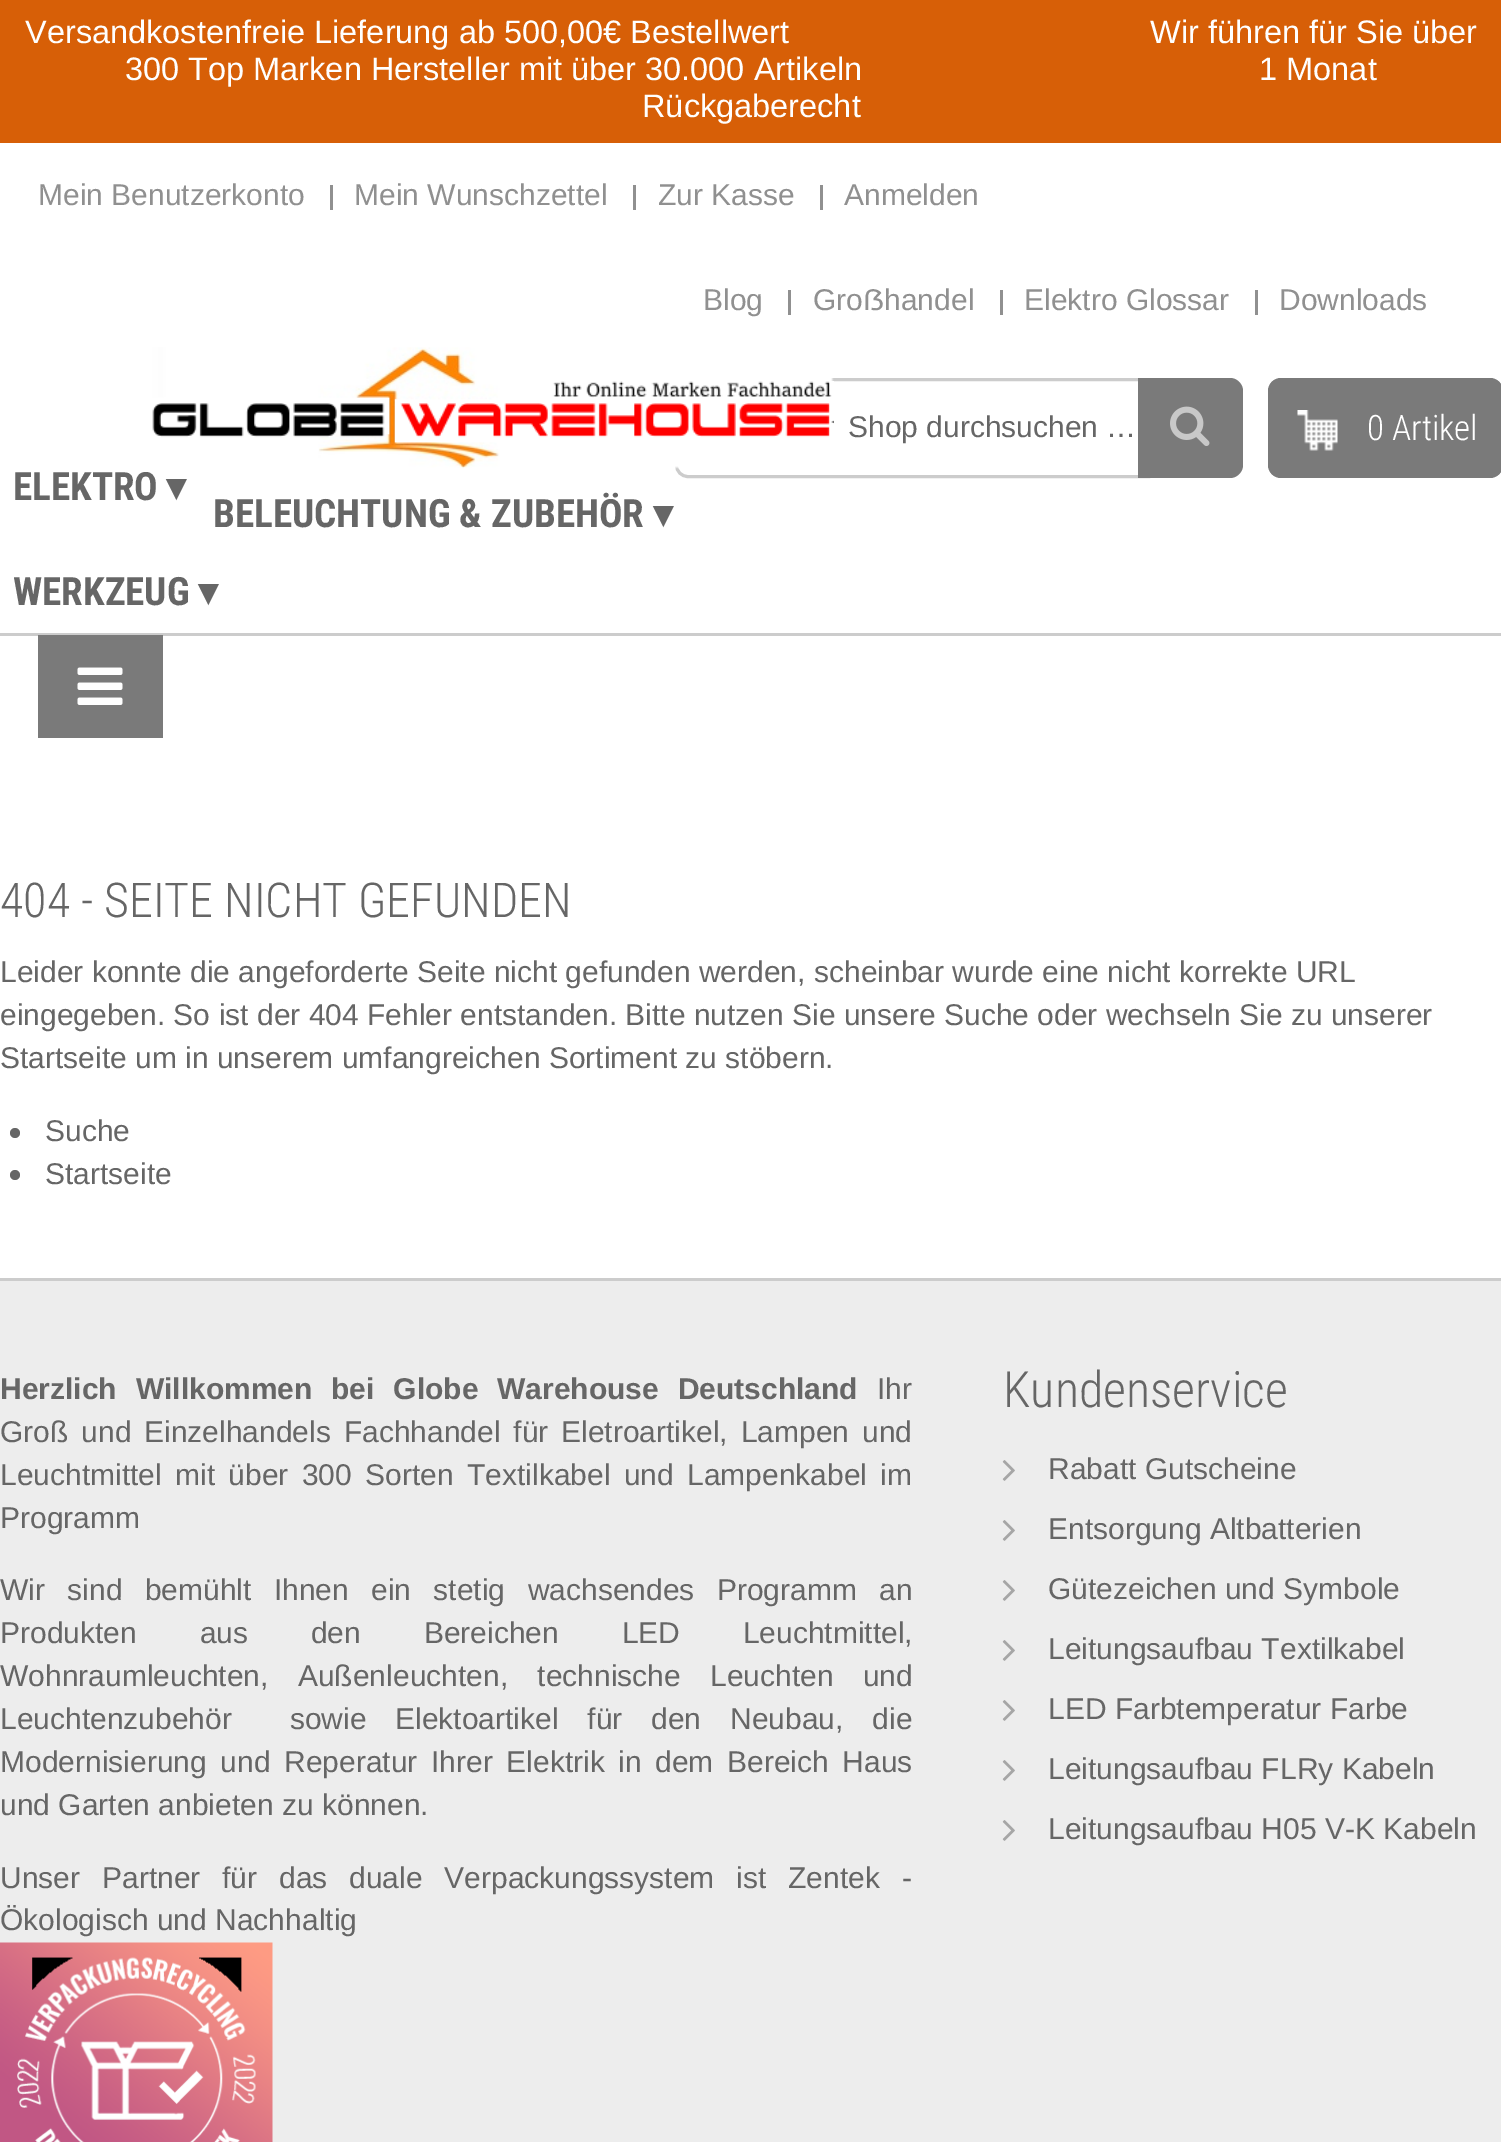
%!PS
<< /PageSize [1501 2142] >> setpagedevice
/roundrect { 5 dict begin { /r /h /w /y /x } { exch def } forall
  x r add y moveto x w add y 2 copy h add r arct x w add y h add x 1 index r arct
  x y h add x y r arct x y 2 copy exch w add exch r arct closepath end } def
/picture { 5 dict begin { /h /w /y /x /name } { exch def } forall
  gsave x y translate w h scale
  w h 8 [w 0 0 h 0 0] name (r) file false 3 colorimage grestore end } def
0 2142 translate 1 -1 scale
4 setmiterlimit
1 setgray
0 0 1501 2142 rectfill
0.843 0.373 0.027 setrgbcolor
0 0 1501 143 rectfill
/LiberationSans-Regular [32.5 0 0 -32.5 0 0] selectfont
1 setgray
25 43 moveto (Versandkostenfreie Lieferung ab 500,00€ Bestellwert                                        Wir führen für Sie über) show
125 80 moveto (300 Top Marken Hersteller mit über 30.000 Artikeln                                            1 Monat) show
642 117 moveto (Rückgaberecht) show
/LiberationSans-Regular [30 0 0 -30 0 0] selectfont
0.565 setgray
38 205 moveto (Mein Benutzerkonto) show
330 185 3 25 rectfill
354 205 moveto (Mein Wunschzettel) show
633 185 3 25 rectfill
658 205 moveto (Zur Kasse) show
820 185 3 25 rectfill
844 205 moveto (Anmelden) show
703 310 moveto (Blog) show
788 290 3 25 rectfill
813 310 moveto (Groẞhandel) show
1000 290 3 25 rectfill
1024 310 moveto (Elektro Glossar) show
1255 290 3 25 rectfill
1279 310 moveto (Downloads) show
0.8 setgray
3 setlinewidth
newpath 688 379.5 moveto 1148.5 379.5 lineto 1148.5 476.5 lineto 688 476.5 lineto 681.5 476.5 676.5 471.5 676.5 465 curveto 676.5 391 lineto 676.5 384.5 681.5 379.5 688 379.5 curveto closepath stroke
(img1.rgb) 152 347 682 122 picture
0.4 setgray
848 437 moveto (Shop durchsuchen …) show
0.478 setgray
newpath 1138 378 moveto 1230 378 lineto 1237 378 1243 384 1243 391 curveto 1243 465 lineto 1243 472 1237 478 1230 478 curveto 1138 478 lineto closepath fill
(img2.rgb) 1170 406 40 40 picture
1268 378 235 100 13 roundrect fill
(img3.rgb) 1297 410 41 41 picture
/RobotoCondensed-Light [35 0 0 -35 0 0] selectfont
1 setgray
1367 440 moveto (0 Artikel) show
/RobotoCondensed-Bold [39 0 0 -39 0 0] selectfont
0.4 setgray
13 500 moveto (ELEKTRO) show
/DejaVuSans-Bold [39 0 0 -39 0 0] selectfont
166 500 moveto (▾) show
/RobotoCondensed-Bold [39 0 0 -39 0 0] selectfont
213 527 moveto (BELEUCHTUNG & ZUBEHÖR) show
/DejaVuSans-Bold [39 0 0 -39 0 0] selectfont
653 527 moveto (▾) show
/RobotoCondensed-Bold [39 0 0 -39 0 0] selectfont
13 605 moveto (WERKZEUG) show
/DejaVuSans-Bold [39 0 0 -39 0 0] selectfont
198 605 moveto (▾) show
0.8 setgray
0 633 1501 3 rectfill
0.478 setgray
38 635 125 103 rectfill
(img4.rgb) 77 667 46 38 picture
/RobotoCondensed-Light [48 0 0 -48 0 0] selectfont
0.4 setgray
0 917 moveto (404 - SEITE NICHT GEFUNDEN) show
/LiberationSans-Regular [30 0 0 -30 0 0] selectfont
0 982 moveto (Leider konnte die angeforderte Seite nicht gefunden werden, scheinbar wurde eine nicht korrekte URL) show
0 1025 moveto (eingegeben. So ist der 404 Fehler entstanden. Bitte nutzen Sie unsere Suche oder wechseln Sie zu unserer) show
0 1068 moveto (Startseite um in unserem umfangreichen Sortiment zu stöbern.) show
newpath 15 1133 5 0 360 arc closepath fill
45 1141 moveto (Suche) show
newpath 15 1175 5 0 360 arc closepath fill
45 1184 moveto (Startseite) show
0.929 setgray
0 1281 1501 861 rectfill
0.8 setgray
0 1278 1501 3 rectfill
/LiberationSans-Bold [30 0 0 -30 0 0] selectfont
0.4 setgray
0 1399 moveto 10.5 0 32 (Herzlich Willkommen bei Globe Warehouse Deutschland) widthshow
/LiberationSans-Regular [30 0 0 -30 0 0] selectfont
877 1399 moveto (Ihr) show
0 1442 moveto 4.5 0 32 (Groß und Einzelhandels Fachhandel für Eletroartikel, Lampen und) widthshow
0 1485 moveto 5 0 32 (Leuchtmittel mit über 300 Sorten Textilkabel und Lampenkabel im) widthshow
0 1528 moveto (Programm) show
0 1600 moveto 14 0 32 (Wir sind bemühlt Ihnen ein stetig wachsendes Programm an) widthshow
0 1643 moveto 54.5 0 32 (Produkten aus den Bereichen LED Leuchtmittel,) widthshow
0 1686 moveto 21 0 32 (Wohnraumleuchten, Außenleuchten, technische Leuchten und) widthshow
0 1729 moveto 20.5 0 32 (Leuchtenzubehör  sowie Elektoartikel für den Neubau, die) widthshow
0 1772 moveto 5.25 0 32 (Modernisierung und Reperatur Ihrer Elektrik in dem Bereich Haus) widthshow
0 1815 moveto (und Garten anbieten zu können.) show
0 1888 moveto 13.5 0 32 (Unser Partner für das duale Verpackungssystem ist Zentek -) widthshow
0 1930 moveto (Ökologisch und Nachhaltig) show
(img5.rgb) 0 1942 273 200 picture
/RobotoCondensed-Light [50 0 0 -50 0 0] selectfont
1003 1407 moveto (Kundenservice) show
(img6.rgb) 1002 1460 13 21 picture
/LiberationSans-Regular [30 0 0 -30 0 0] selectfont
1048 1479 moveto (Rabatt Gutscheine) show
(img6.rgb) 1002 1520 13 21 picture
1048 1539 moveto (Entsorgung Altbatterien) show
(img6.rgb) 1002 1580 13 21 picture
1048 1599 moveto (Gütezeichen und Symbole) show
(img6.rgb) 1002 1640 13 21 picture
1048 1659 moveto (Leitungsaufbau Textilkabel) show
(img6.rgb) 1002 1700 13 21 picture
1048 1719 moveto (LED Farbtemperatur Farbe) show
(img6.rgb) 1002 1760 13 21 picture
1048 1779 moveto (Leitungsaufbau FLRy Kabeln) show
(img6.rgb) 1002 1820 13 21 picture
1048 1839 moveto (Leitungsaufbau H05 V-K Kabeln) show
showpage
